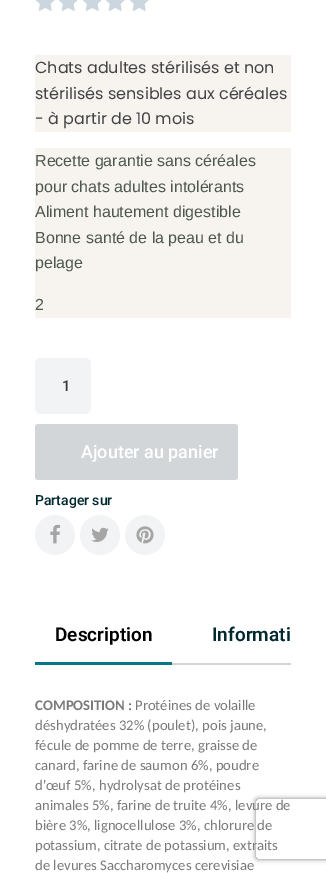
%!PS
<< /PageSize [326 873] /PageUsesTransparency true >> setpagedevice
/alpha { dup .setfillconstantalpha .setstrokeconstantalpha } def
/roundrect { 5 dict begin { /r /h /w /y /x } { exch def } forall
  x r add y moveto x w add y 2 copy h add r arct x w add y h add x 1 index r arct
  x y h add x y r arct x y 2 copy exch w add exch r arct closepath end } def
/shadow { 12 dict begin { /a /b /q /h /w /y /x } { exch def } forall gsave /was 0 def
  9 -2 -9 { dup b mul 4 div /e exch def 1 sub .425 mul 2.718 exch exp 1 add a .99 .min exch div /now exch def
    1 1 now sub 1 was sub div sub alpha /was now def
    w h .min e 2 mul add 0 gt { x e sub y e sub w e 2 mul add h e 2 mul add
      q e add b .6 mul add w h .min 2 div e add .min 0 .max roundrect fill } if } for grestore end } def
/picture { 5 dict begin { /h /w /y /x /name } { exch def } forall
  gsave x y translate w h scale
  w h 8 [w 0 0 h 0 0] name (r) file false 3 colorimage grestore end } def
0 .pushpdf14devicefilter
0 873 translate 1 -1 scale
4 setmiterlimit
1 setgray
0 0 326 873 rectfill
(img1.rgb) 36 0 19 11 picture
(img1.rgb) 59 0 19 11 picture
(img1.rgb) 83 0 19 11 picture
(img1.rgb) 106 0 19 11 picture
(img1.rgb) 130 0 19 11 picture
0.969 0.957 0.937 setrgbcolor
35 55 256 77 rectfill
/Poppins-Regular [16 0 0 -16 0 0] selectfont
0.263 0.263 0.278 setrgbcolor
35 73 moveto (Chats adultes stérilisés et non) show
35 99 moveto (stérilisés sensibles aux céréales) show
35 124 moveto (- à partir de 10 mois) show
0.969 0.957 0.937 setrgbcolor
35 148 256 170 rectfill
/LiberationSans-Regular [16 0 0 -16 0 0] selectfont
0.302 0.341 0.314 setrgbcolor
35 166 moveto (Recette garantie sans céréales) show
35 192 moveto (pour chats adultes intolérants) show
35 217 moveto (Aliment hautement digestible) show
35 243 moveto (Bonne santé de la peau et du) show
35 268 moveto (pelage) show
35 310 moveto (2) show
0.949 0.953 0.957 setrgbcolor
35 358 56 56 6 roundrect fill
/Roboto-Medium [15 0 0 -15 0 0] selectfont
0.216 0.227 0.235 setrgbcolor
62 391 moveto (1) show
0.827 0.839 0.851 setrgbcolor
35 424 203 56 3 roundrect fill
/Roboto-Medium [18 0 0 -18 0 0] selectfont
1 setgray
81 458 moveto (Ajouter au panier) show
/Roboto-Medium [14 0 0 -14 0 0] selectfont
0.008 0.161 0.184 setrgbcolor
35 505 moveto (Partager sur) show
0.949 0.953 0.957 setrgbcolor
newpath 55 535 20 0 360 arc closepath fill
(img2.rgb) 50 524 10 20 picture
newpath 100 535 20 0 360 arc closepath fill
(img3.rgb) 91 527 18 15 picture
newpath 145 535 20 0 360 arc closepath fill
(img4.rgb) 136 526 18 18 picture
0.831 setgray
172 663 119 2 rectfill
/Roboto-SemiBold [19 0 0 -19 0 0] selectfont
0 setgray
55 641 moveto (Description) show
0.012 0.463 0.529 setrgbcolor
35 662 137 3 rectfill
0.008 0.161 0.184 setrgbcolor
212 641 moveto (Informati) show
/Carlito-Bold [14.7 0 0 -14.7 0 0] selectfont
0.478 setgray
35 710 moveto (COMPOSITION :) show
/Carlito-Regular [14.7 0 0 -14.7 0 0] selectfont
135 710 moveto (Protéines de volaille) show
35 730 moveto (déshydratées 32% \(poulet\), pois jaune,) show
35 750 moveto (fécule de pomme de terre, graisse de) show
35 770 moveto (canard, farine de saumon 6%, poudre) show
35 790 moveto (d'œuf 5%, hydrolysat de protéines) show
35 810 moveto (animales 5%, farine de truite 4%, levure de) show
35 830 moveto (bière 3%, lignocellulose 3%, chlorure de) show
35 850 moveto (potassium, citrate de potassium, extraits) show
35 870 moveto (de levures Saccharomyces cerevisiae) show
gsave
newpath 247 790 moveto 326 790 lineto 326 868 lineto 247 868 lineto closepath 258 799 moveto 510 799 lineto 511 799 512 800 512 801 curveto 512 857 lineto 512 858 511 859 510 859 curveto 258 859 lineto 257 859 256 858 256 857 curveto 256 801 lineto 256 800 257 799 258 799 curveto closepath eoclip newpath
0.502 setgray
256 799 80 60 2 2.5 1 shadow
grestore
.poppdf14devicefilter showpage
